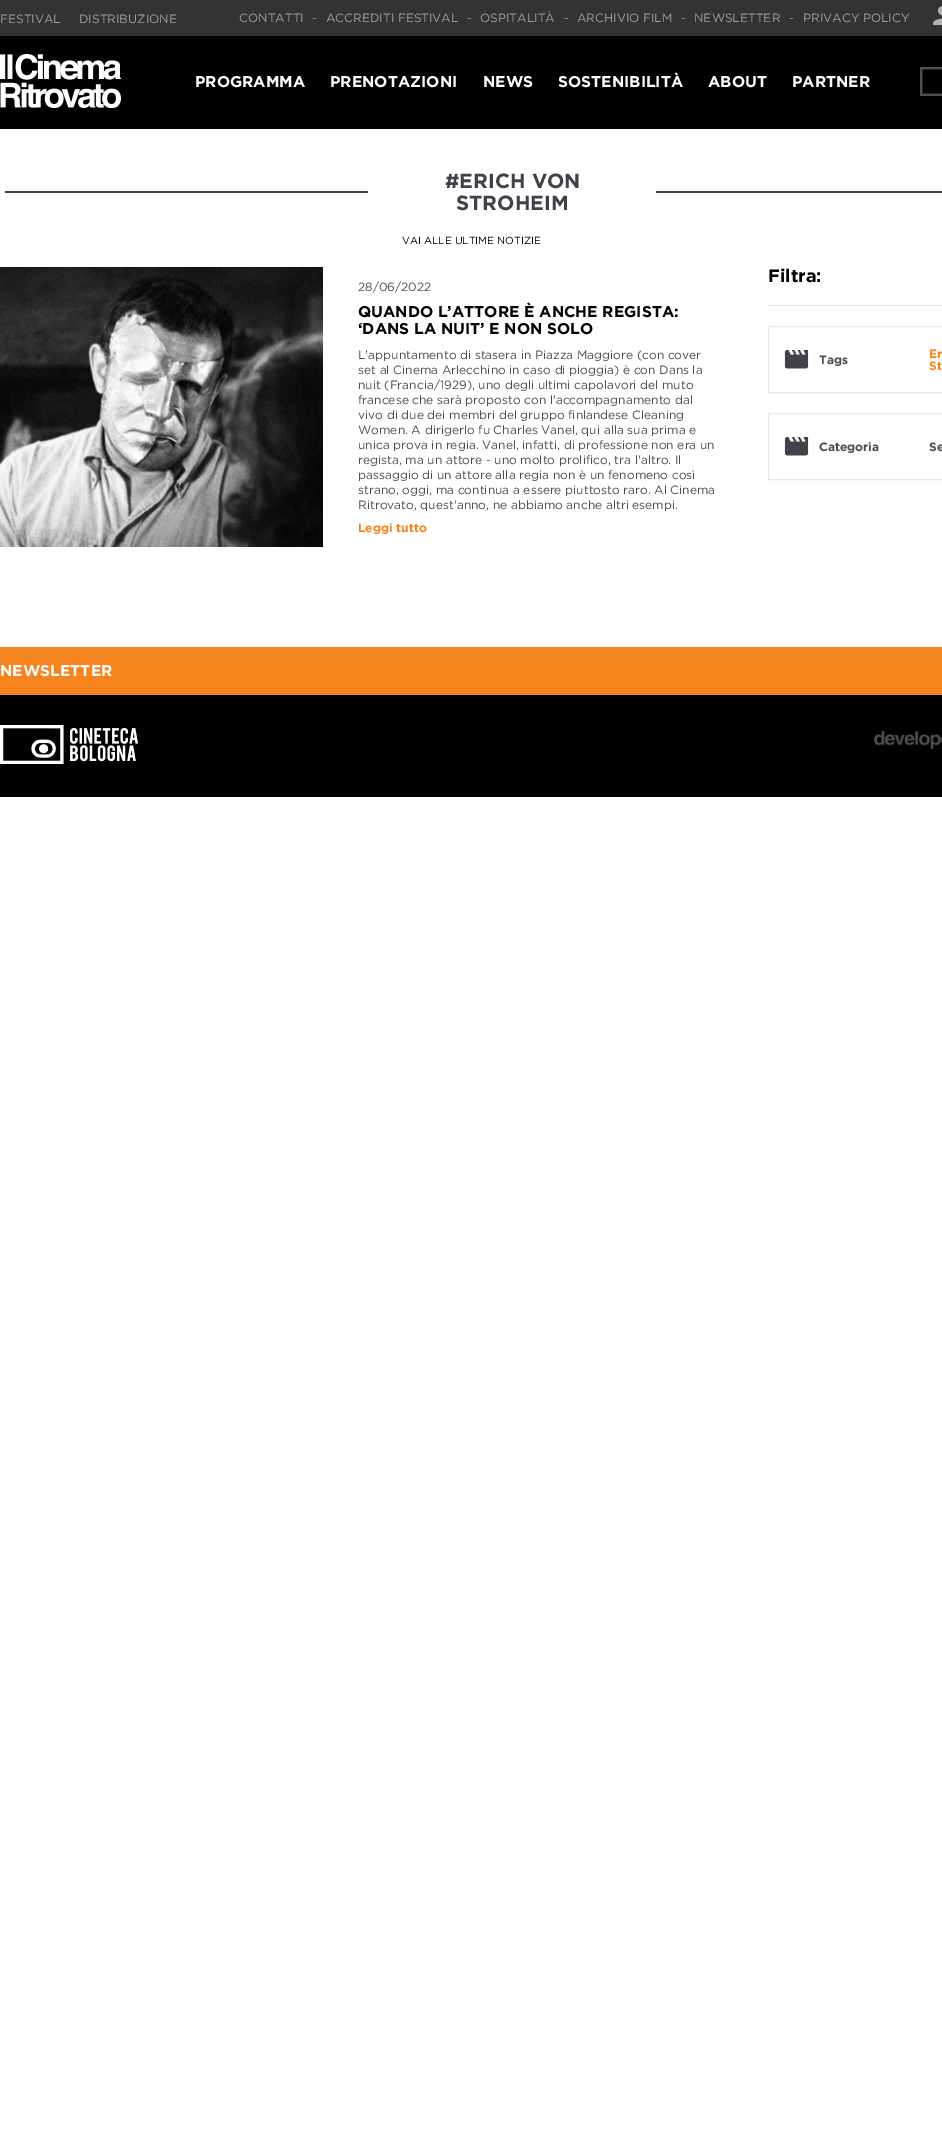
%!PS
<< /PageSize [942 2138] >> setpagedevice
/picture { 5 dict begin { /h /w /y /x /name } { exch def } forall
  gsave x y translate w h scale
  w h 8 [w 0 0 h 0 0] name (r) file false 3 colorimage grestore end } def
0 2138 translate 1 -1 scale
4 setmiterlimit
1 setgray
0 0 942 2138 rectfill
0.2 setgray
0 0 942 36 rectfill
/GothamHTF-Regular [12 0 0 -12 0 0] selectfont
0.627 setgray
0 23 moveto (FESTIVAL) show
79 23 moveto (DISTRIBUZIONE) show
239 22 moveto (CONTATTI) show
312 22 moveto (-) show
326 22 moveto (ACCREDITI FESTIVAL) show
467 22 moveto (-) show
480 22 moveto (OSPITALITÀ) show
564 22 moveto (-) show
577 22 moveto (ARCHIVIO FILM) show
681 22 moveto (-) show
694 22 moveto (NEWSLETTER) show
789 22 moveto (-) show
803 22 moveto (PRIVACY POLICY) show
(img1.rgb) 933 6 9 19 picture
0 setgray
0 36 942 93 rectfill
(img2.rgb) 0 54 121 54 picture
/Gotham-Bold [15.6 0 0 -15.6 0 0] selectfont
1 setgray
195 87 moveto (PROGRAMMA) show
330 87 moveto (PRENOTAZIONI) show
483 87 moveto (NEWS) show
558 87 moveto (SOSTENIBILITÀ) show
708 87 moveto (ABOUT) show
792 87 moveto (PARTNER) show
(img3.rgb) 920 67 22 29 picture
0.263 0.251 0.286 setrgbcolor
5 191 363 2 rectfill
/Gotham-Bold [20.5 0 0 -20.5 0 0] selectfont
445 188 moveto (#ERICH VON) show
456 210 moveto (STROHEIM) show
656 191 286 2 rectfill
/GothamHTF-Regular [10.25 0 0 -10.25 0 0] selectfont
0 setgray
402 244 moveto (VAI ALLE ULTIME NOTIZIE) show
(img4.rgb) 0 267 323 280 picture
/GothamHTF-Regular [12 0 0 -12 0 0] selectfont
0.302 setgray
358 291 moveto (28/06/2022) show
/Gotham-Bold [15.6 0 0 -15.6 0 0] selectfont
0 setgray
358 317 moveto (QUANDO L’ATTORE È ANCHE REGISTA:) show
358 334 moveto (‘DANS LA NUIT’ E NON SOLO) show
/GothamHTF-Regular [12 0 0 -12 0 0] selectfont
0.302 setgray
358 359 moveto (L'appuntamento di stasera in Piazza Maggiore \(con cover) show
358 374 moveto (set al Cinema Arlecchino in caso di pioggia\) è con Dans la) show
358 389 moveto (nuit \(Francia/1929\), uno degli ultimi capolavori del muto) show
358 404 moveto (francese che sarà proposto con l'accompagnamento dal) show
358 419 moveto (vivo di due dei membri del gruppo finlandese Cleaning) show
358 434 moveto (Women. A dirigerlo fu Charles Vanel, qui alla sua prima e) show
358 449 moveto (unica prova in regia. Vanel, infatti, di professione non era un) show
358 464 moveto (regista, ma un attore - uno molto prolifico, tra l'altro. Il) show
358 479 moveto (passaggio di un attore alla regia non è un fenomeno così) show
358 494 moveto (strano, oggi, ma continua a essere piuttosto raro. Al Cinema) show
358 509 moveto (Ritrovato, quest'anno, ne abbiamo anche altri esempi.) show
/Gotham-Bold [12 0 0 -12 0 0] selectfont
0.965 0.518 0.118 setrgbcolor
358 532 moveto (Leggi tutto) show
0.902 0.918 0.918 setrgbcolor
768 305 174 1 rectfill
/Gotham-Bold [18 0 0 -18 0 0] selectfont
0 setgray
768 282 moveto (Filtra:) show
0.902 0.918 0.918 setrgbcolor
768.5 326.5 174 66 rectstroke
(img5.rgb) 784 350 25 19 picture
/Gotham-Bold [12 0 0 -12 0 0] selectfont
0.302 setgray
819 364 moveto (Tags) show
0.965 0.518 0.118 setrgbcolor
929 358 moveto (Er) show
929 370 moveto (St) show
0.902 0.918 0.918 setrgbcolor
768.5 413.5 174 66 rectstroke
(img5.rgb) 784 437 25 19 picture
0.302 setgray
819 451 moveto (Categoria) show
929 451 moveto (Se) show
0.965 0.518 0.118 setrgbcolor
0 647 942 48 rectfill
/Gotham-Bold [15.6 0 0 -15.6 0 0] selectfont
1 setgray
0 676 moveto (NEWSLETTER) show
0 setgray
0 695 942 102 rectfill
(img6.rgb) 0 725 138 39 picture
(img7.rgb) 874 731 68 18 picture
showpage
